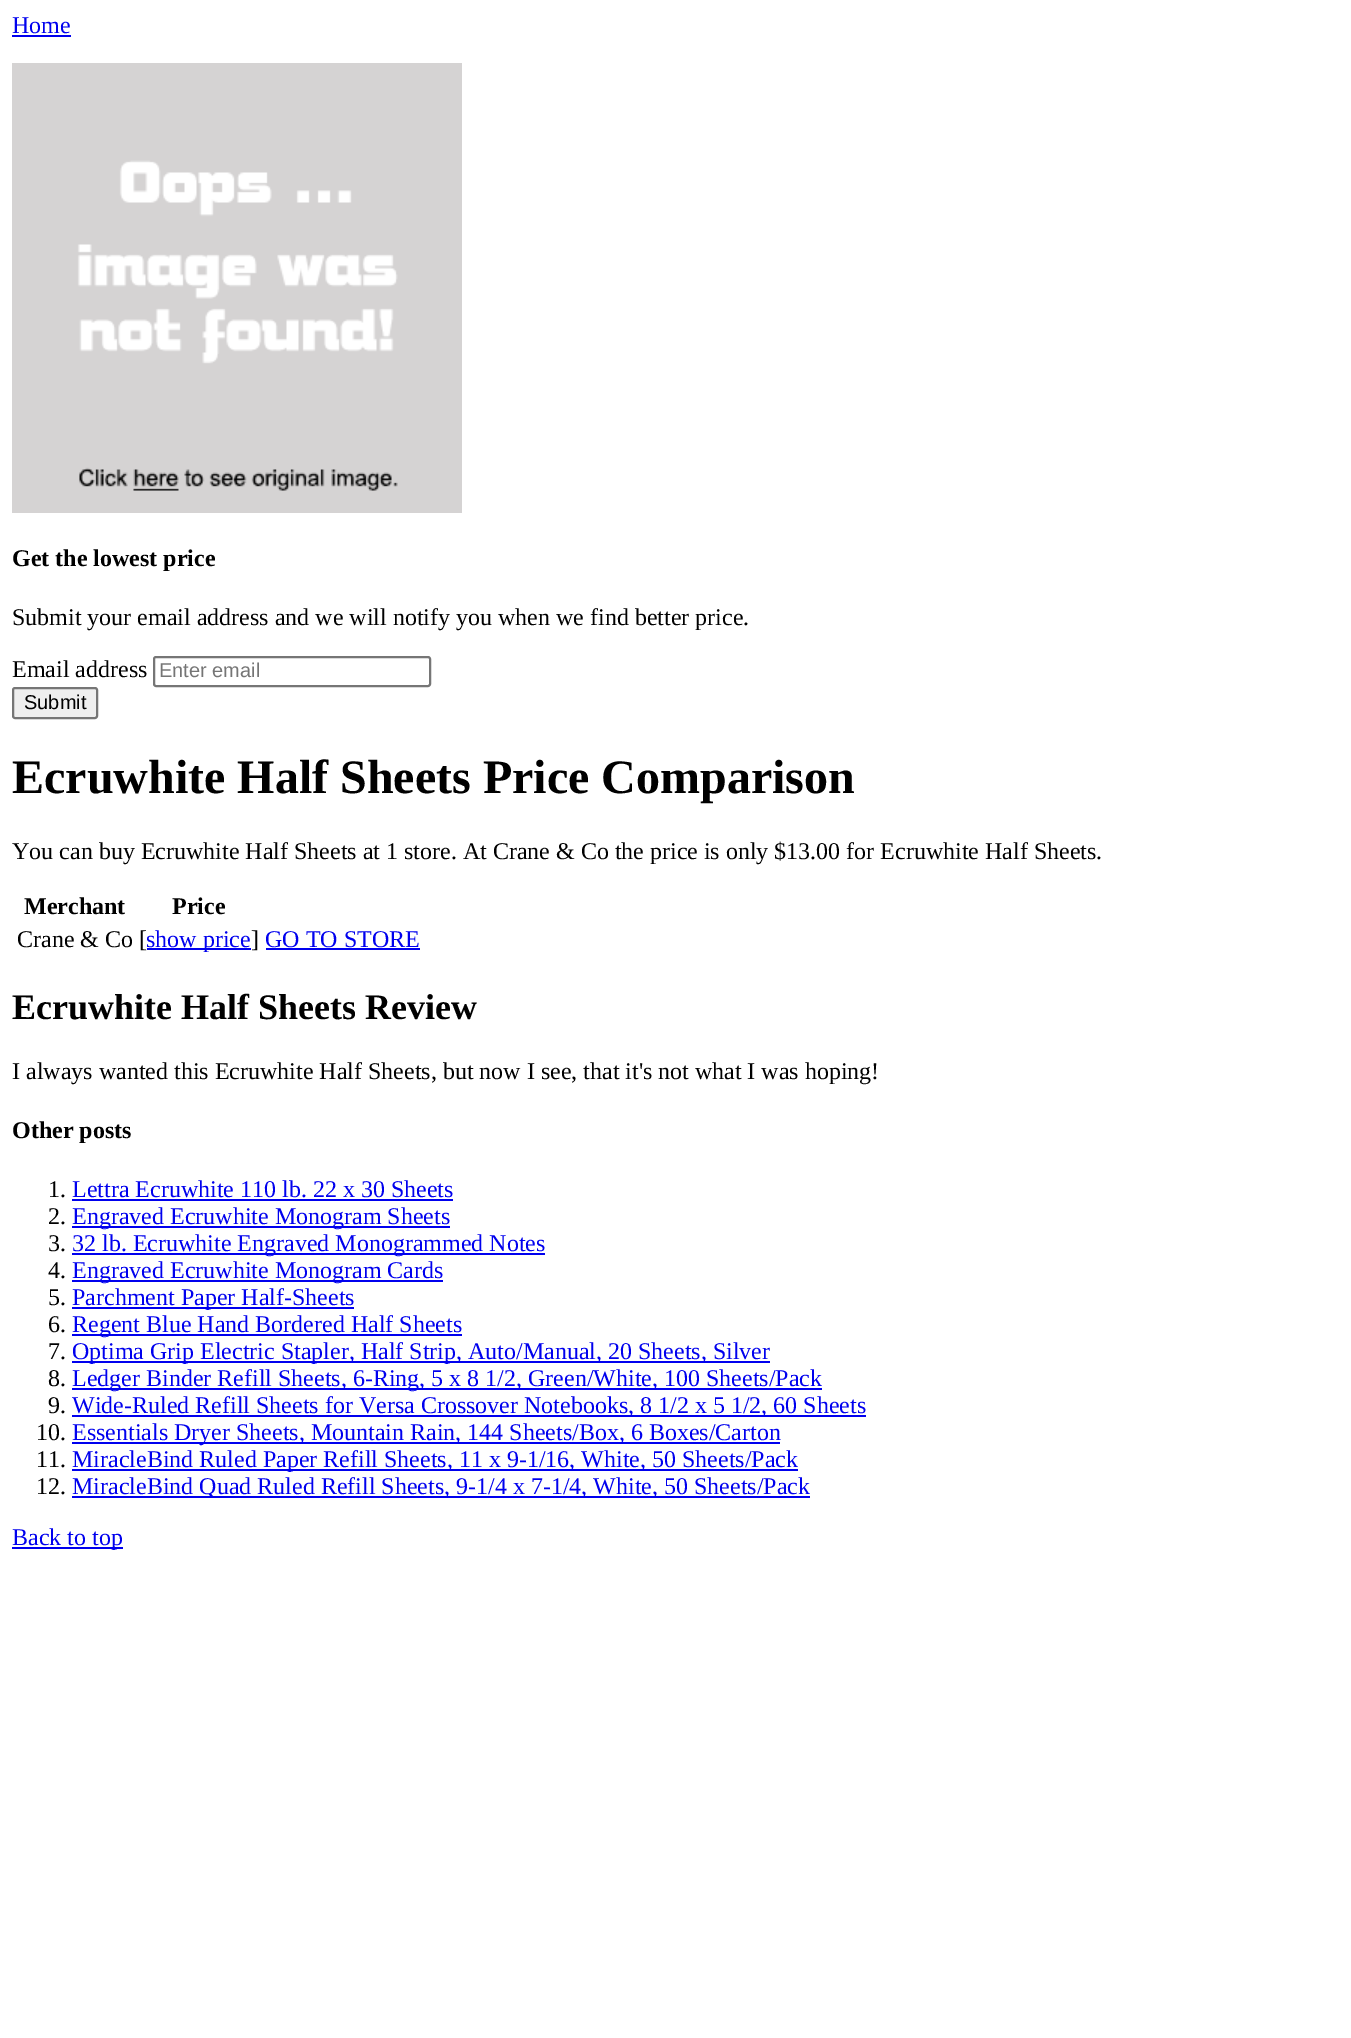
%!PS
<< /PageSize [1351 2038] >> setpagedevice
/roundrect { 5 dict begin { /r /h /w /y /x } { exch def } forall
  x r add y moveto x w add y 2 copy h add r arct x w add y h add x 1 index r arct
  x y h add x y r arct x y 2 copy exch w add exch r arct closepath end } def
/picture { 5 dict begin { /h /w /y /x /name } { exch def } forall
  gsave x y translate w h scale
  w h 8 [w 0 0 h 0 0] name (r) file false 3 colorimage grestore end } def
0 2038 translate 1 -1 scale
4 setmiterlimit
1 setgray
0 0 1351 2038 rectfill
/LiberationSerif-Regular [24 0 0 -24 0 0] selectfont
0 0 0.933 setrgbcolor
12 33 moveto (Home) show
12 35 59 2 rectfill
(img1.rgb) 12 63 450 450 picture
/LiberationSerif-Bold [24 0 0 -24 0 0] selectfont
0 setgray
12 566 moveto (Get the lowest price) show
/LiberationSerif-Regular [24 0 0 -24 0 0] selectfont
12 625 moveto (Submit your email address and we will notify you when we find better price.) show
12 677 moveto (Email address) show
0.463 setgray
2 setlinewidth
154 657 276 29 2 roundrect stroke
/LiberationSans-Regular [20 0 0 -20 0 0] selectfont
0.459 setgray
159 677 moveto (Enter email) show
0.937 setgray
13 688 84 30 2 roundrect gsave fill grestore
0.463 setgray
stroke
0 setgray
24 709 moveto (Submit) show
/LiberationSerif-Bold [48 0 0 -48 0 0] selectfont
12 793 moveto (Ecruwhite Half Sheets Price Comparison) show
/LiberationSerif-Regular [24 0 0 -24 0 0] selectfont
12 859 moveto (You can buy Ecruwhite Half Sheets at 1 store. At Crane & Co the price is only $13.00 for Ecruwhite Half Sheets.) show
/LiberationSerif-Bold [24 0 0 -24 0 0] selectfont
24 914 moveto (Merchant) show
172 914 moveto (Price) show
/LiberationSerif-Regular [24 0 0 -24 0 0] selectfont
17 947 moveto (Crane & Co [) show
0 0 0.933 setrgbcolor
147 948 104 2 rectfill
146 947 moveto (show price) show
0 setgray
251 947 moveto (]) show
0 0 0.933 setrgbcolor
265 947 moveto (GO TO STORE) show
266 948 154 2 rectfill
/LiberationSerif-Bold [36 0 0 -36 0 0] selectfont
0 setgray
12 1019 moveto (Ecruwhite Half Sheets Review) show
/LiberationSerif-Regular [24 0 0 -24 0 0] selectfont
12 1079 moveto (I always wanted this Ecruwhite Half Sheets, but now I see, that it's not what I was hoping!) show
/LiberationSerif-Bold [24 0 0 -24 0 0] selectfont
12 1138 moveto (Other posts) show
/LiberationSerif-Regular [24 0 0 -24 0 0] selectfont
48 1197 moveto (1.) show
0 0 0.933 setrgbcolor
72 1197 moveto (Lettra Ecruwhite 110 lb. 22 x 30 Sheets) show
72 1199 381 2 rectfill
0 setgray
48 1224 moveto (2.) show
0 0 0.933 setrgbcolor
72 1226 378 2 rectfill
72 1224 moveto (Engraved Ecruwhite Monogram Sheets) show
0 setgray
48 1251 moveto (3.) show
0 0 0.933 setrgbcolor
72 1253 473 2 rectfill
72 1251 moveto (32 lb. Ecruwhite Engraved Monogrammed Notes) show
0 setgray
48 1278 moveto (4.) show
0 0 0.933 setrgbcolor
72 1280 371 2 rectfill
72 1278 moveto (Engraved Ecruwhite Monogram Cards) show
0 setgray
48 1305 moveto (5.) show
0 0 0.933 setrgbcolor
72 1307 282 2 rectfill
72 1305 moveto (Parchment Paper Half-Sheets) show
0 setgray
48 1332 moveto (6.) show
0 0 0.933 setrgbcolor
72 1334 390 2 rectfill
72 1332 moveto (Regent Blue Hand Bordered Half Sheets) show
0 setgray
48 1359 moveto (7.) show
0 0 0.933 setrgbcolor
72 1361 698 2 rectfill
72 1359 moveto (Optima Grip Electric Stapler, Half Strip, Auto/Manual, 20 Sheets, Silver) show
0 setgray
48 1386 moveto (8.) show
0 0 0.933 setrgbcolor
72 1388 750 2 rectfill
72 1386 moveto (Ledger Binder Refill Sheets, 6-Ring, 5 x 8 1/2, Green/White, 100 Sheets/Pack) show
0 setgray
48 1413 moveto (9.) show
0 0 0.933 setrgbcolor
72 1415 794 2 rectfill
72 1413 moveto (Wide-Ruled Refill Sheets for Versa Crossover Notebooks, 8 1/2 x 5 1/2, 60 Sheets) show
0 setgray
36 1440 moveto (10.) show
0 0 0.933 setrgbcolor
72 1442 708 2 rectfill
72 1440 moveto (Essentials Dryer Sheets, Mountain Rain, 144 Sheets/Box, 6 Boxes/Carton) show
0 setgray
36 1467 moveto (11.) show
0 0 0.933 setrgbcolor
72 1469 726 2 rectfill
72 1467 moveto (MiracleBind Ruled Paper Refill Sheets, 11 x 9-1/16, White, 50 Sheets/Pack) show
0 setgray
36 1494 moveto (12.) show
0 0 0.933 setrgbcolor
72 1496 738 2 rectfill
72 1494 moveto (MiracleBind Quad Ruled Refill Sheets, 9-1/4 x 7-1/4, White, 50 Sheets/Pack) show
12 1547 111 2 rectfill
12 1545 moveto (Back to top) show
showpage
